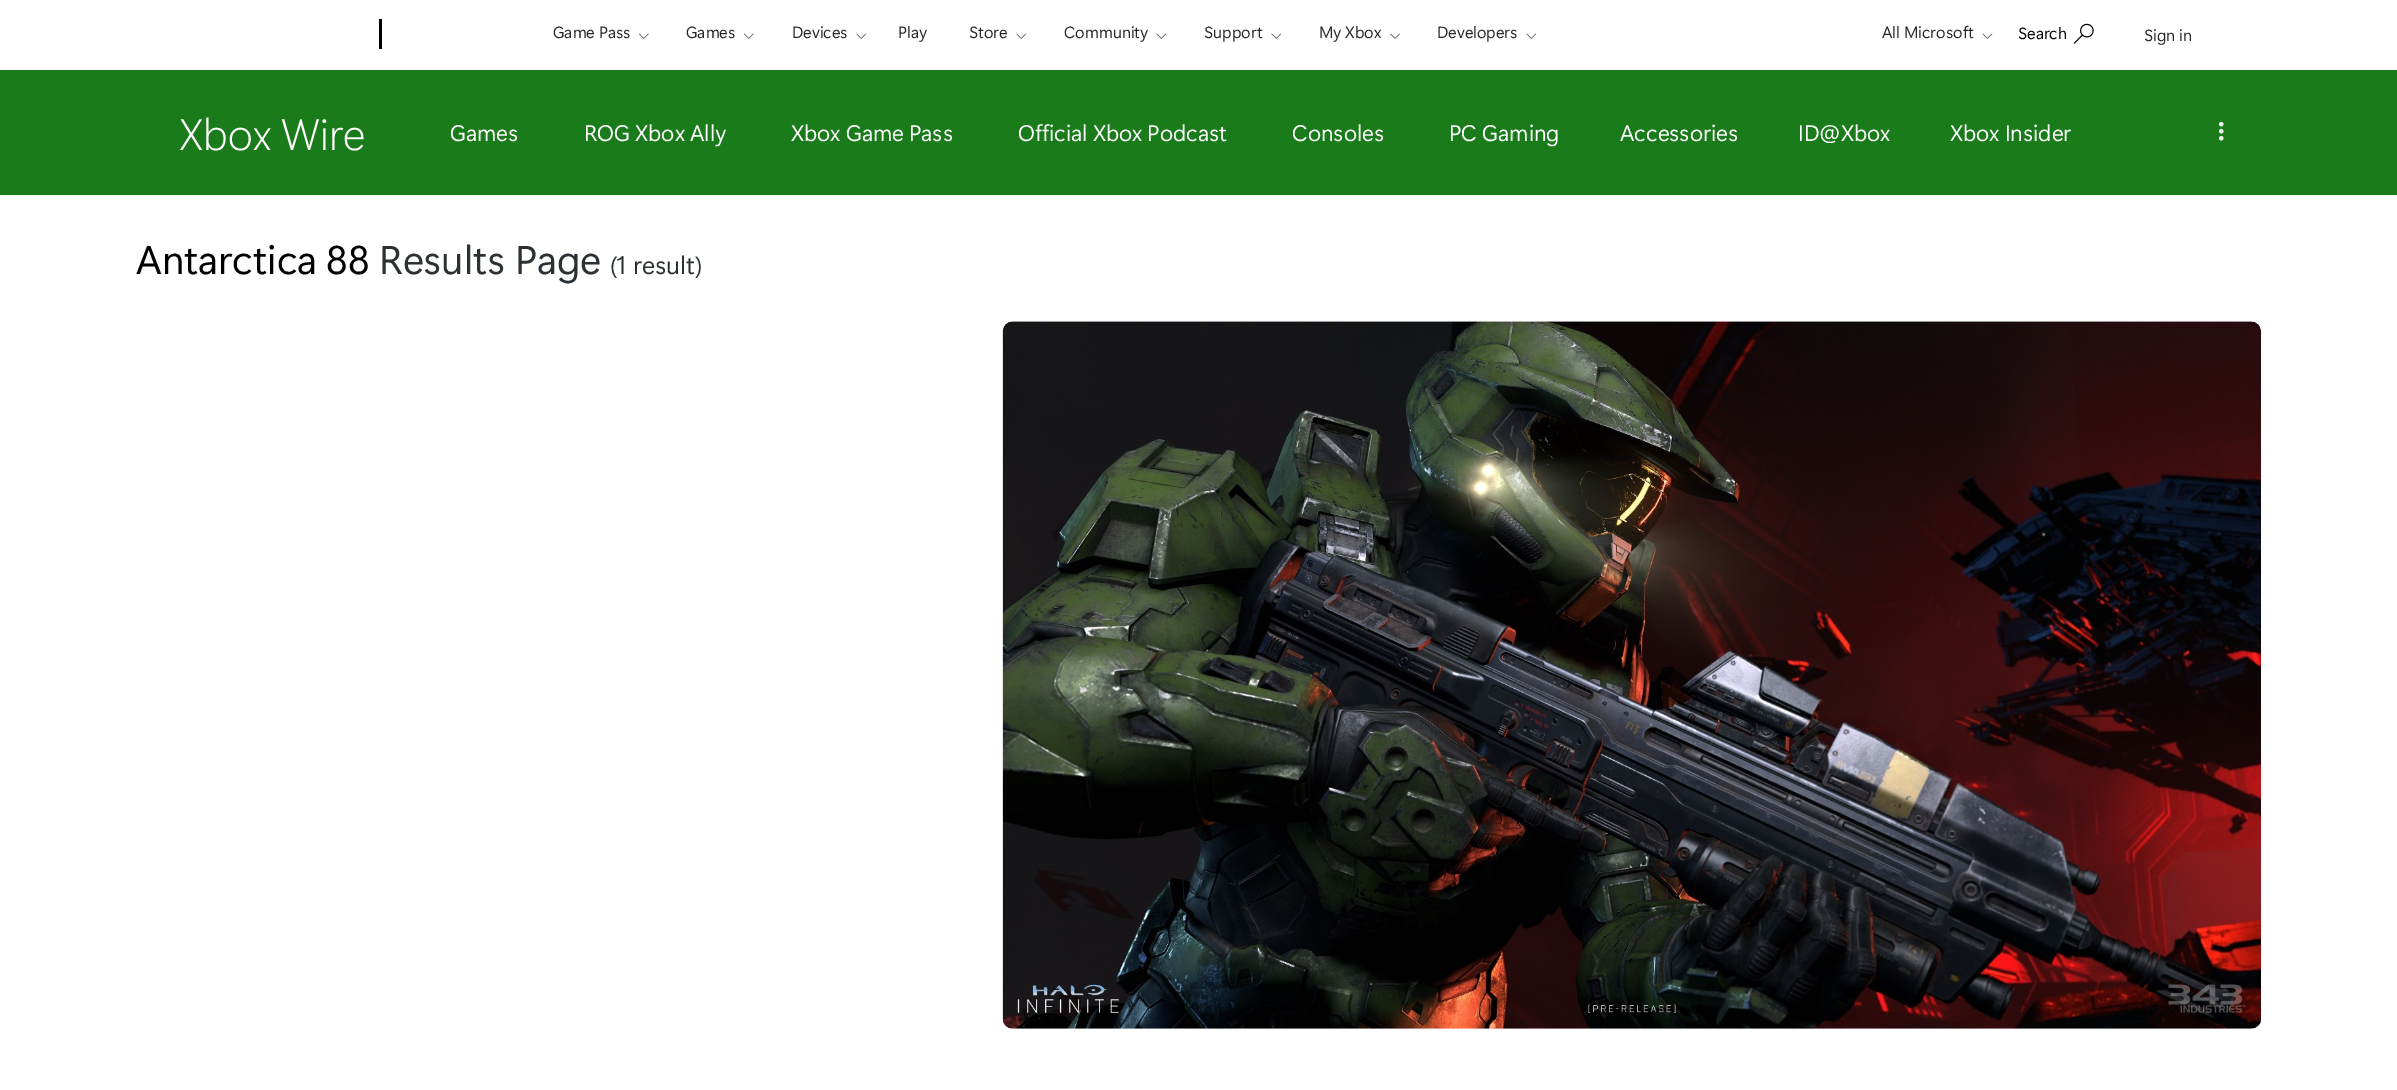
%!PS
<< /PageSize [2397 1090] >> setpagedevice
/picture { 5 dict begin { /h /w /y /x /name } { exch def } forall
  gsave x y translate w h scale
  w h 8 [w 0 0 h 0 0] name (r) file false 3 colorimage grestore end } def
0 1090 translate 1 -1 scale
4 setmiterlimit
1 setgray
0 0 2397 1090 rectfill
0 setgray
379 19 3 30 rectfill
/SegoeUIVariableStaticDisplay-Regular [16.25 0 0 -16.25 0 0] selectfont
0.149 setgray
553 38 moveto (Game Pass) show
(img1.rgb) 639 33 10 6 picture
686 38 moveto (Games) show
(img1.rgb) 744 33 10 6 picture
792 38 moveto (Devices) show
(img2.rgb) 856 33 10 6 picture
898 38 moveto (Play) show
969 38 moveto (Store) show
(img2.rgb) 1016 33 10 6 picture
1064 38 moveto (Community) show
(img2.rgb) 1156 33 10 6 picture
1204 38 moveto (Support) show
(img2.rgb) 1271 33 10 6 picture
1319 38 moveto (My Xbox) show
(img3.rgb) 1390 33 10 6 picture
1437 38 moveto (Developers) show
(img2.rgb) 1526 33 10 6 picture
1882 38 moveto (All Microsoft) show
(img4.rgb) 1982 33 11 6 picture
0 setgray
2018 39 moveto (Search) show
(img5.rgb) 2073 23 21 21 picture
0.149 setgray
2144 41 moveto (Sign in) show
0.098 0.482 0.102 setrgbcolor
0 70 2397 125 rectfill
/SegoeUIVariableStaticDisplay-Light [43.75 0 0 -43.75 0 0] selectfont
1 setgray
179 150 moveto (Xbox Wire) show
/SegoeUIVariableStaticDisplay-Regular [22.5 0 0 -22.5 0 0] selectfont
450 141 moveto (Games) show
584 141 moveto (ROG Xbox Ally) show
791 141 moveto (Xbox Game Pass) show
1018 141 moveto (Official Xbox Podcast) show
1292 141 moveto (Consoles) show
1449 141 moveto (PC Gaming) show
1620 141 moveto (Accessories) show
1798 141 moveto (ID@Xbox) show
1950 141 moveto (Xbox Insider) show
(img6.rgb) 2218 121 6 20 picture
/SegoeUIVariableStaticDisplay-Regular [40 0 0 -40 0 0] selectfont
0 setgray
136 274 moveto (Antarctica 88) show
0.173 0.192 0.212 setrgbcolor
379 274 moveto (Results Page) show
/SegoeUIVariableStaticDisplay-Regular [25 0 0 -25 0 0] selectfont
610 274 moveto (\(1 result\)) show
(img7.rgb) 1002 321 1260 708 picture
showpage
